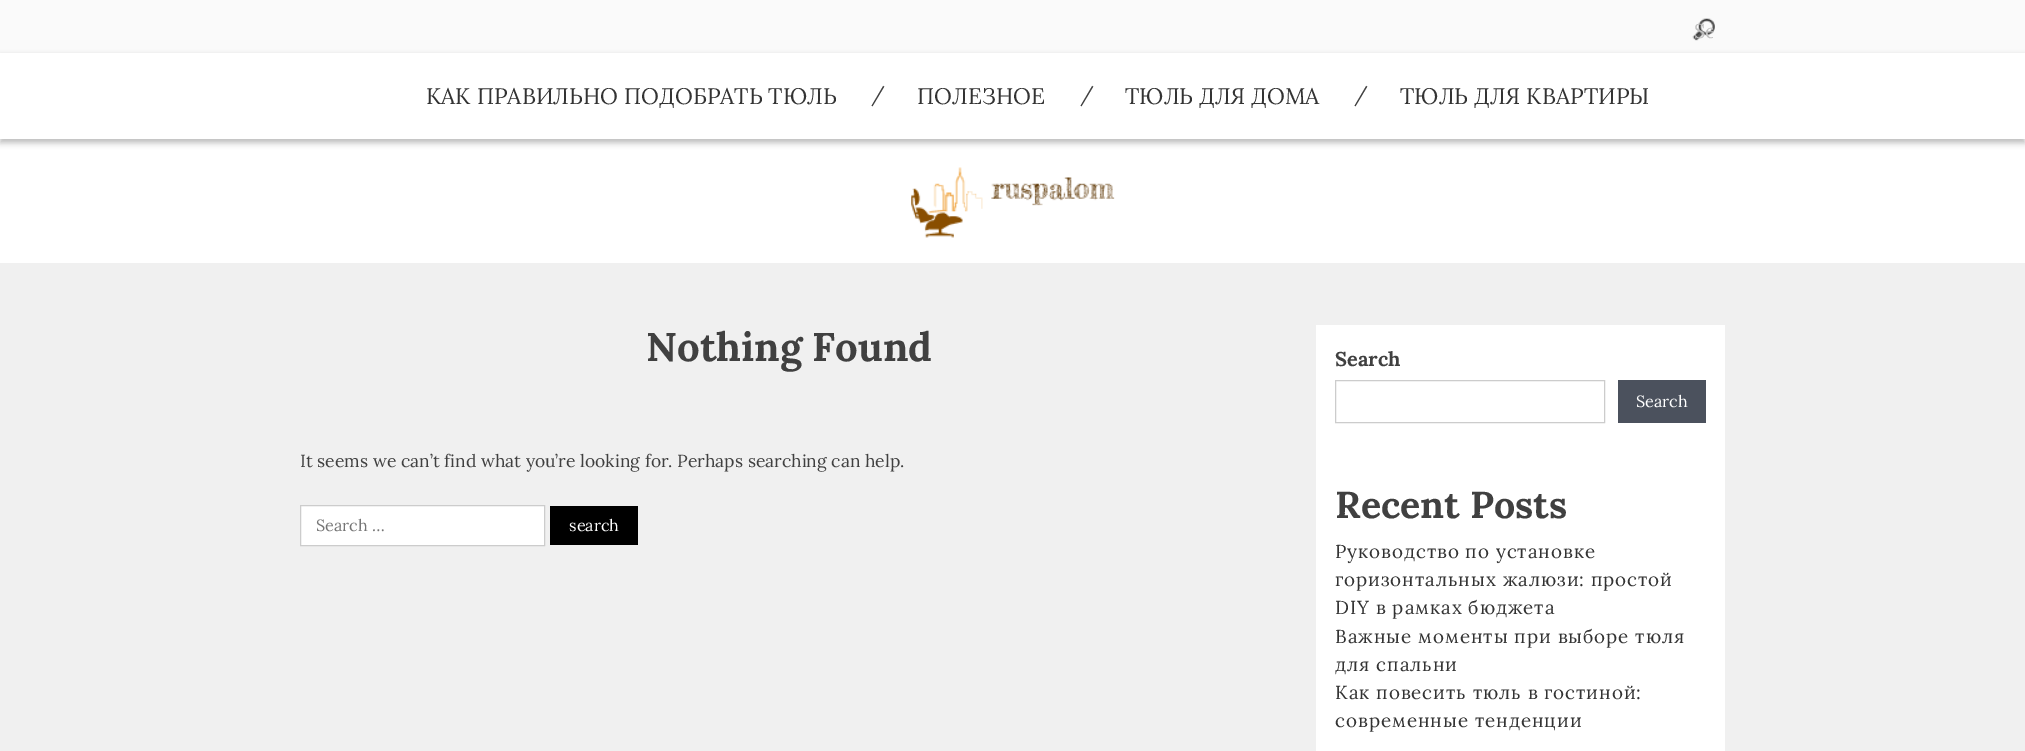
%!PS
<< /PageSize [2025 751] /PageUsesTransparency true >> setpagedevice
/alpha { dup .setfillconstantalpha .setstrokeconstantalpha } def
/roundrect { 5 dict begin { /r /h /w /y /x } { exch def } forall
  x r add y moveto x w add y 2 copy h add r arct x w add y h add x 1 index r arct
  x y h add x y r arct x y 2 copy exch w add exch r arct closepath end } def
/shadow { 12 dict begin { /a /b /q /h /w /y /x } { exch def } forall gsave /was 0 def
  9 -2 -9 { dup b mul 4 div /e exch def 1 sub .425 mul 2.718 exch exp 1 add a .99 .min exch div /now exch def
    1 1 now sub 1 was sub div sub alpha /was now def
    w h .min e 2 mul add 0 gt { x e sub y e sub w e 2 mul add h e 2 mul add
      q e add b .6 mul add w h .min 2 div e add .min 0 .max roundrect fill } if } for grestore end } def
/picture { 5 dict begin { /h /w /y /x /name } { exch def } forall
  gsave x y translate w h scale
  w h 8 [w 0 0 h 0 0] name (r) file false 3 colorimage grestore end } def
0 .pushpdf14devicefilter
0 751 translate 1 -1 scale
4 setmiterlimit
0.941 setgray
0 0 2025 751 rectfill
1 setgray
0 139 2025 124 rectfill
0.98 setgray
0 0 2025 53 rectfill
(img1.rgb) 1692 18 23 23 picture
gsave
1694 18 19 25 rectclip
/Lora-Regular [20 0 0 -20 0 0] selectfont
0.753 setgray
1694 38 moveto (Se) show
grestore
0 setgray
0 56 2025 87 0 3 0.25 shadow
1 setgray
0 53 2025 86 rectfill
/Lora-Regular [22.5 0 0 -22.5 0 0] selectfont
0.2 setgray
426 104 moveto (КАК ПРАВИЛЬНО ПОДОБРАТЬ ТЮЛЬ) show
/Lora-Regular [20 0 0 -20 0 0] selectfont
0.251 setgray
871 101 moveto (/) show
/Lora-Regular [22.5 0 0 -22.5 0 0] selectfont
0.2 setgray
917 104 moveto (ПОЛЕЗНОЕ) show
/Lora-Regular [20 0 0 -20 0 0] selectfont
0.251 setgray
1080 101 moveto (/) show
/Lora-Regular [22.5 0 0 -22.5 0 0] selectfont
0.2 setgray
1125 104 moveto (ТЮЛЬ ДЛЯ ДОМА) show
/Lora-Regular [20 0 0 -20 0 0] selectfont
0.251 setgray
1354 101 moveto (/) show
/Lora-Regular [22.5 0 0 -22.5 0 0] selectfont
0.2 setgray
1400 104 moveto (ТЮЛЬ ДЛЯ КВАРТИРЫ) show
(img2.rgb) 911 167 204 71 picture
/Lora-Bold [40 0 0 -40 0 0] selectfont
0.251 setgray
646 361 moveto (Nothing Found) show
/Lora-Regular [17.5 0 0 -17.5 0 0] selectfont
300 467 moveto (It seems we can’t find what you’re looking for. Perhaps searching can help.) show
1 setgray
newpath 300.5 505.5 moveto 544.5 505.5 lineto 544.5 545.5 lineto 300.5 545.5 lineto closepath gsave fill grestore
0.8 setgray
stroke
/Lora-Regular [16.25 0 0 -16.25 0 0] selectfont
0.459 setgray
316 531 moveto (Search …) show
0 setgray
550 506 88 39 rectfill
1 setgray
569 531 moveto (search) show
1316 325 409 426 rectfill
/Lora-Bold [20 0 0 -20 0 0] selectfont
0.251 setgray
1335 366 moveto (Search) show
0.8 setgray
1335.5 380.5 269 42 rectstroke
0.294 0.318 0.365 setrgbcolor
1618 380 88 43 rectfill
/Lora-Regular [16.25 0 0 -16.25 0 0] selectfont
1 setgray
1636 407 moveto (Search) show
/Lora-Bold [37.5 0 0 -37.5 0 0] selectfont
0.251 setgray
1335 518 moveto (Recent Posts) show
/Lora-Regular [18.75 0 0 -18.75 0 0] selectfont
0.2 setgray
1335 558 moveto 0.95 0 (Руководство по установке) ashow
1335 586 moveto 0.95 0 (горизонтальных жалюзи: простой) ashow
1335 614 moveto 0.95 0 (DIY в рамках бюджета) ashow
1335 643 moveto 0.95 0 (Важные моменты при выборе тюля) ashow
1335 671 moveto 0.95 0 (для спальни) ashow
1335 699 moveto 0.95 0 (Как повесить тюль в гостиной:) ashow
1335 727 moveto 0.95 0 (современные тенденции) ashow
.poppdf14devicefilter showpage
